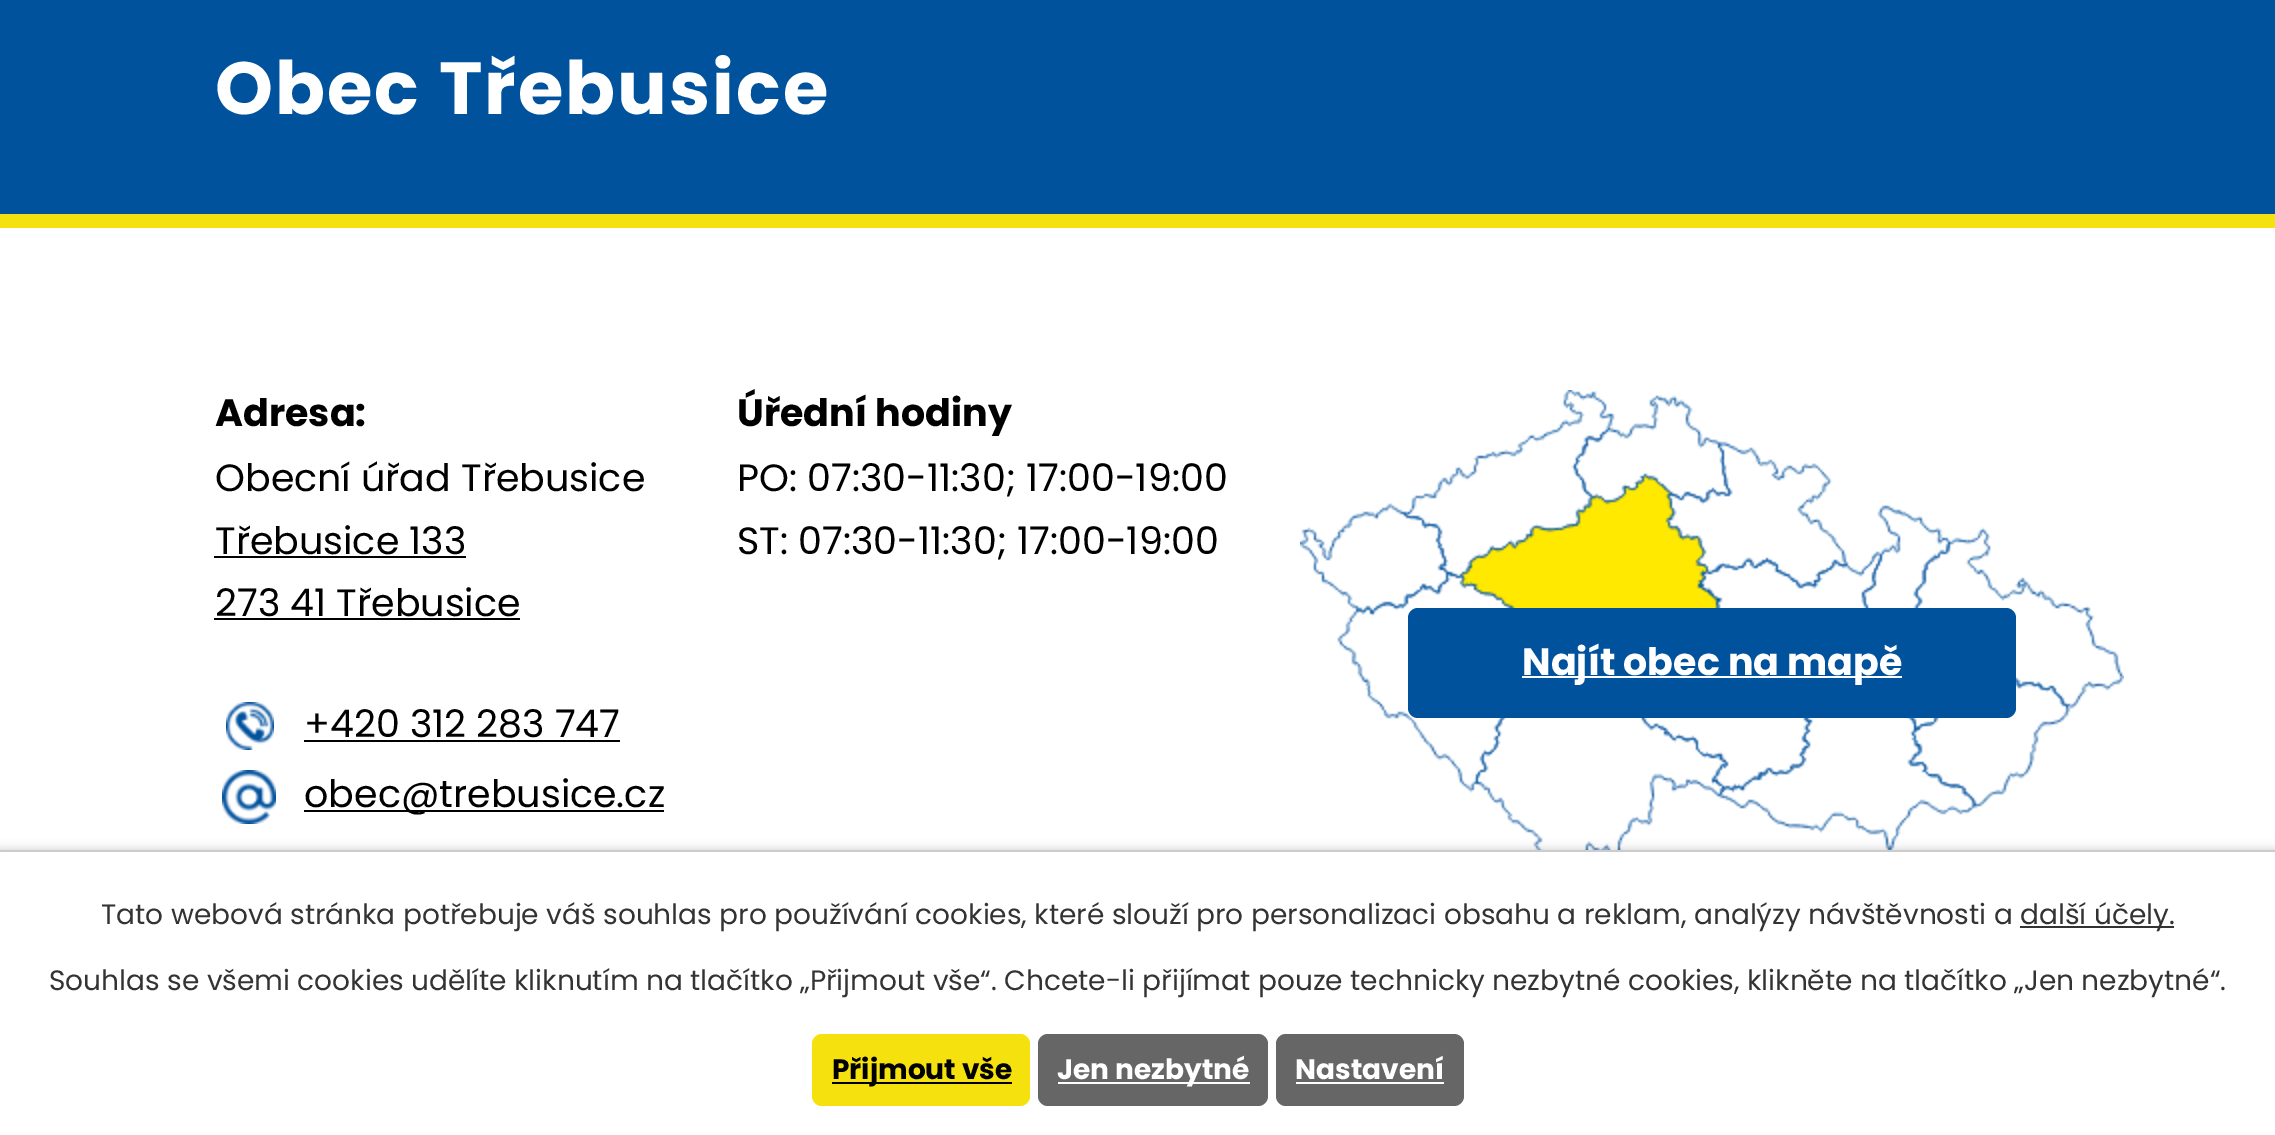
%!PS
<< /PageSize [2275 1135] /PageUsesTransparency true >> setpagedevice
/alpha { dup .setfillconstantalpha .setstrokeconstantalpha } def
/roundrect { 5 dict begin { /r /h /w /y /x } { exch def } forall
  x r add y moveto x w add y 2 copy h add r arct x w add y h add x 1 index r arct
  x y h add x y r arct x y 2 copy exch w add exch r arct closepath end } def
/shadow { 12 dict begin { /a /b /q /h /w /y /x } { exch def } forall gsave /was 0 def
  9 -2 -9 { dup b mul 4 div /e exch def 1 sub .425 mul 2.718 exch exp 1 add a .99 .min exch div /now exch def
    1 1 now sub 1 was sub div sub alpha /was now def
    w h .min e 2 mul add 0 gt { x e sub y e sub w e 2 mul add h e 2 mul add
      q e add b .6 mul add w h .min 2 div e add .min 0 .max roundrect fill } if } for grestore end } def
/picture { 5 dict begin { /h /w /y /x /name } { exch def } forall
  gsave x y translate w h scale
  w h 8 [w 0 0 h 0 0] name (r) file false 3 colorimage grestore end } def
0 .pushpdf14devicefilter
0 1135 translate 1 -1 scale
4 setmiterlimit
1 setgray
0 0 2275 1135 rectfill
0 0.322 0.616 setrgbcolor
0 0 2275 214 rectfill
0.961 0.882 0.055 setrgbcolor
0 214 2275 14 rectfill
/Poppins-Bold [73.75 0 0 -73.75 0 0] selectfont
1 setgray
215 114 moveto 2 0 (Obec Třebusice) ashow
/Poppins-Bold [38 0 0 -38 0 0] selectfont
0 setgray
215 426 moveto (Adresa:) show
/Poppins-Regular [38 0 0 -38 0 0] selectfont
215 491 moveto (Obecní úřad Třebusice) show
215 554 moveto (Třebusice 133) show
214 556 252 2 rectfill
215 616 moveto (273 41 Třebusice) show
214 618 306 2 rectfill
(img1.rgb) 226 702 48 48 picture
304 737 moveto (+420 312 283 747) show
304 740 316 2 rectfill
(img2.rgb) 222 770 54 54 picture
304 810 360 2 rectfill
304 807 moveto (obec@trebusice.cz) show
/Poppins-Bold [38 0 0 -38 0 0] selectfont
737 426 moveto (Úřední hodiny) show
/Poppins-Regular [38 0 0 -38 0 0] selectfont
737 491 moveto (PO: 07:30-11:30; 17:00-19:00) show
737 554 moveto (ST: 07:30-11:30; 17:00-19:00) show
(img3.rgb) 1300 390 824 460 picture
0 0.322 0.616 setrgbcolor
1408 608 608 110 10 roundrect fill
1 setgray
1522 676 380 2 rectfill
/Poppins-Bold [38 0 0 -38 0 0] selectfont
1522 675 moveto (Najít obec na mapě) show
0 setgray
0 850 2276 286 0 5 0.2 shadow
1 setgray
0 852 2275 283 rectfill
0.8 setgray
0 850 2275 2 rectfill
/Poppins-Regular [28 0 0 -28 0 0] selectfont
0.2 setgray
101 924 moveto (Tato webová stránka potřebuje váš souhlas pro používání cookies, které slouží pro personalizaci obsahu a reklam, analýzy návštěvnosti a) show
2020 926 154 2 rectfill
2020 924 moveto (další účely.) show
49 990 moveto (Souhlas se všemi cookies udělíte kliknutím na tlačítko „Přijmout vše“. Chcete-li přijímat pouze technicky nezbytné cookies, klikněte na tlačítko „Jen nezbytné“.) show
0.961 0.882 0.055 setrgbcolor
812 1034 218 72 10 roundrect fill
0 setgray
832 1082 180 2 rectfill
/Poppins-Bold [28 0 0 -28 0 0] selectfont
832 1079 moveto (Přijmout vše) show
0.4 setgray
1038 1034 230 72 10 roundrect fill
1 setgray
1058 1082 192 2 rectfill
1057 1079 moveto (Jen nezbytné) show
0.4 setgray
1276 1034 188 72 10 roundrect fill
1 setgray
1295 1079 moveto (Nastavení) show
1296 1082 148 2 rectfill
.poppdf14devicefilter showpage
